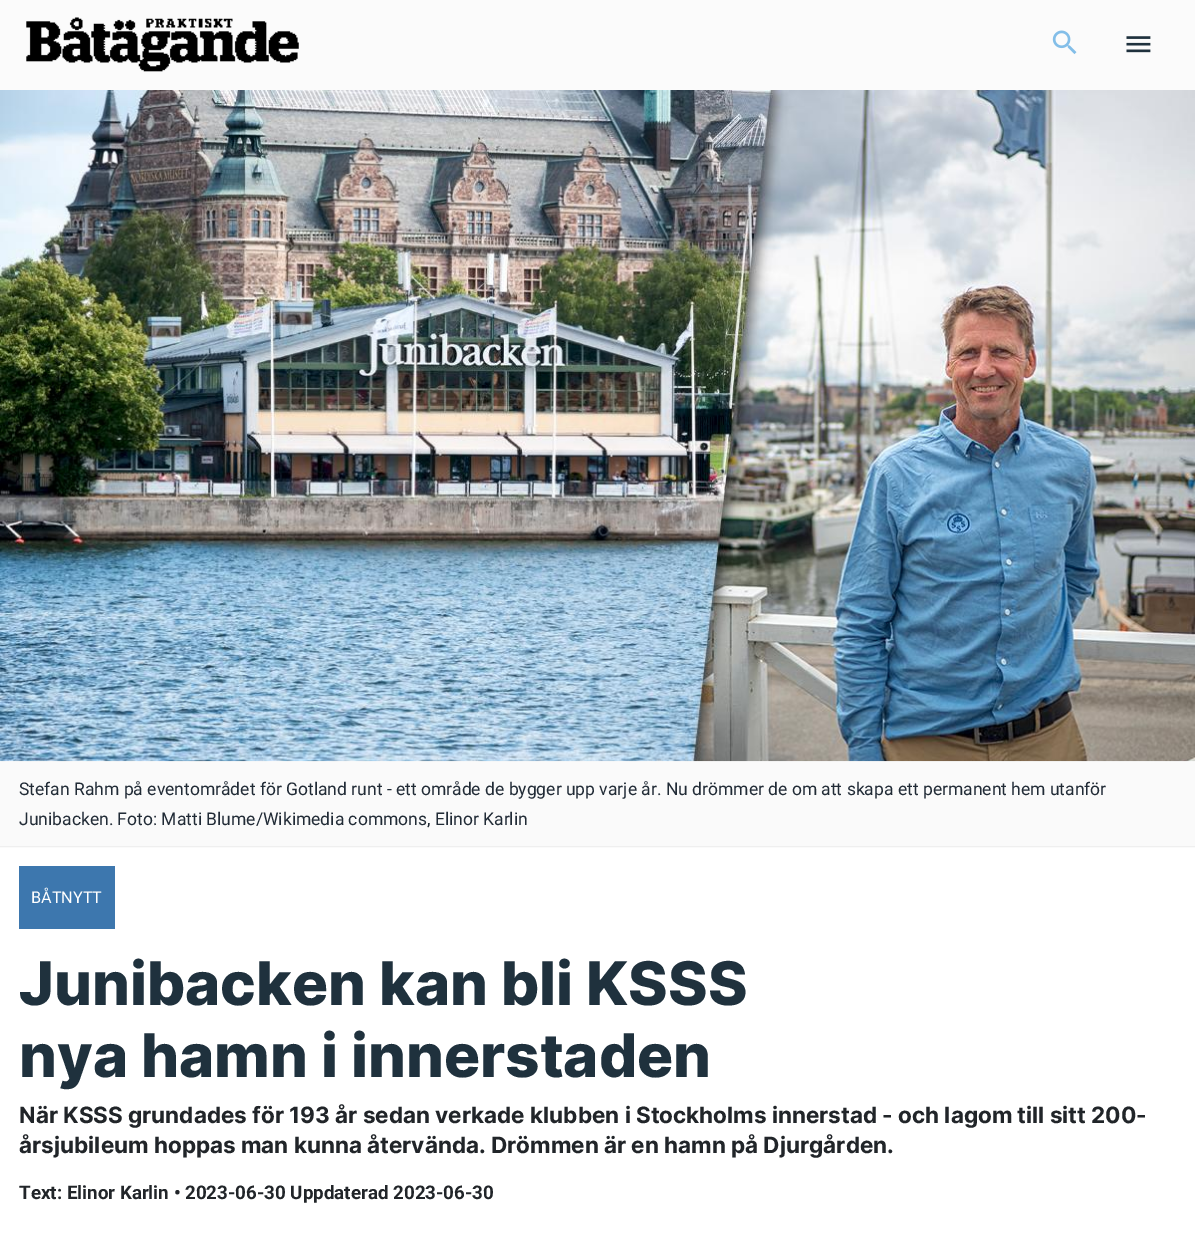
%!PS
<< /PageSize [1195 1252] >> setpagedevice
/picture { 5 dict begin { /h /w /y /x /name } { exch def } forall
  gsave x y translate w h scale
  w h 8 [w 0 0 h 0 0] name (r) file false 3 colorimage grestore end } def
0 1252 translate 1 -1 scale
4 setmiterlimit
1 setgray
0 0 1195 1252 rectfill
0.984 setgray
0 0 1195 90 rectfill
(img1.rgb) 26 17 273 55 picture
(img2.rgb) 1052 30 25 25 picture
(img3.rgb) 1126 36 25 17 picture
0.98 setgray
0 761 1195 87 rectfill
(img4.rgb) 0 90 1195 672 picture
0.937 setgray
0 846 1195 1 rectfill
/Roboto-Regular [17.5 0 0 -17.5 0 0] selectfont
0.129 0.169 0.212 setrgbcolor
19 795 moveto (Stefan Rahm på eventområdet för Gotland runt - ett område de bygger upp varje år. Nu drömmer de om att skapa ett permanent hem utanför) show
19 825 moveto (Junibacken. Foto: Matti Blume/Wikimedia commons, Elinor Karlin) show
0.239 0.467 0.682 setrgbcolor
19 866 96 63 rectfill
/Roboto-Regular [16.25 0 0 -16.25 0 0] selectfont
1 setgray
31 903 moveto (BÅTNYTT) show
/Inter-ExtraBold [60 0 0 -60 0 0] selectfont
0.122 0.192 0.239 setrgbcolor
19 1005 moveto (Junibacken kan bli KSSS) show
19 1077 moveto (nya hamn i innerstaden) show
/Inter-Bold [22.5 0 0 -22.5 0 0] selectfont
0.129 0.145 0.161 setrgbcolor
19 1123 moveto (När KSSS grundades för 193 år sedan verkade klubben i Stockholms innerstad - och lagom till sitt 200-) show
19 1153 moveto (årsjubileum hoppas man kunna återvända. Drömmen är en hamn på Djurgården.) show
/Roboto-Bold [18.75 0 0 -18.75 0 0] selectfont
19 1199 moveto (Text: Elinor Karlin • 2023-06-30 Uppdaterad 2023-06-30) show
showpage
